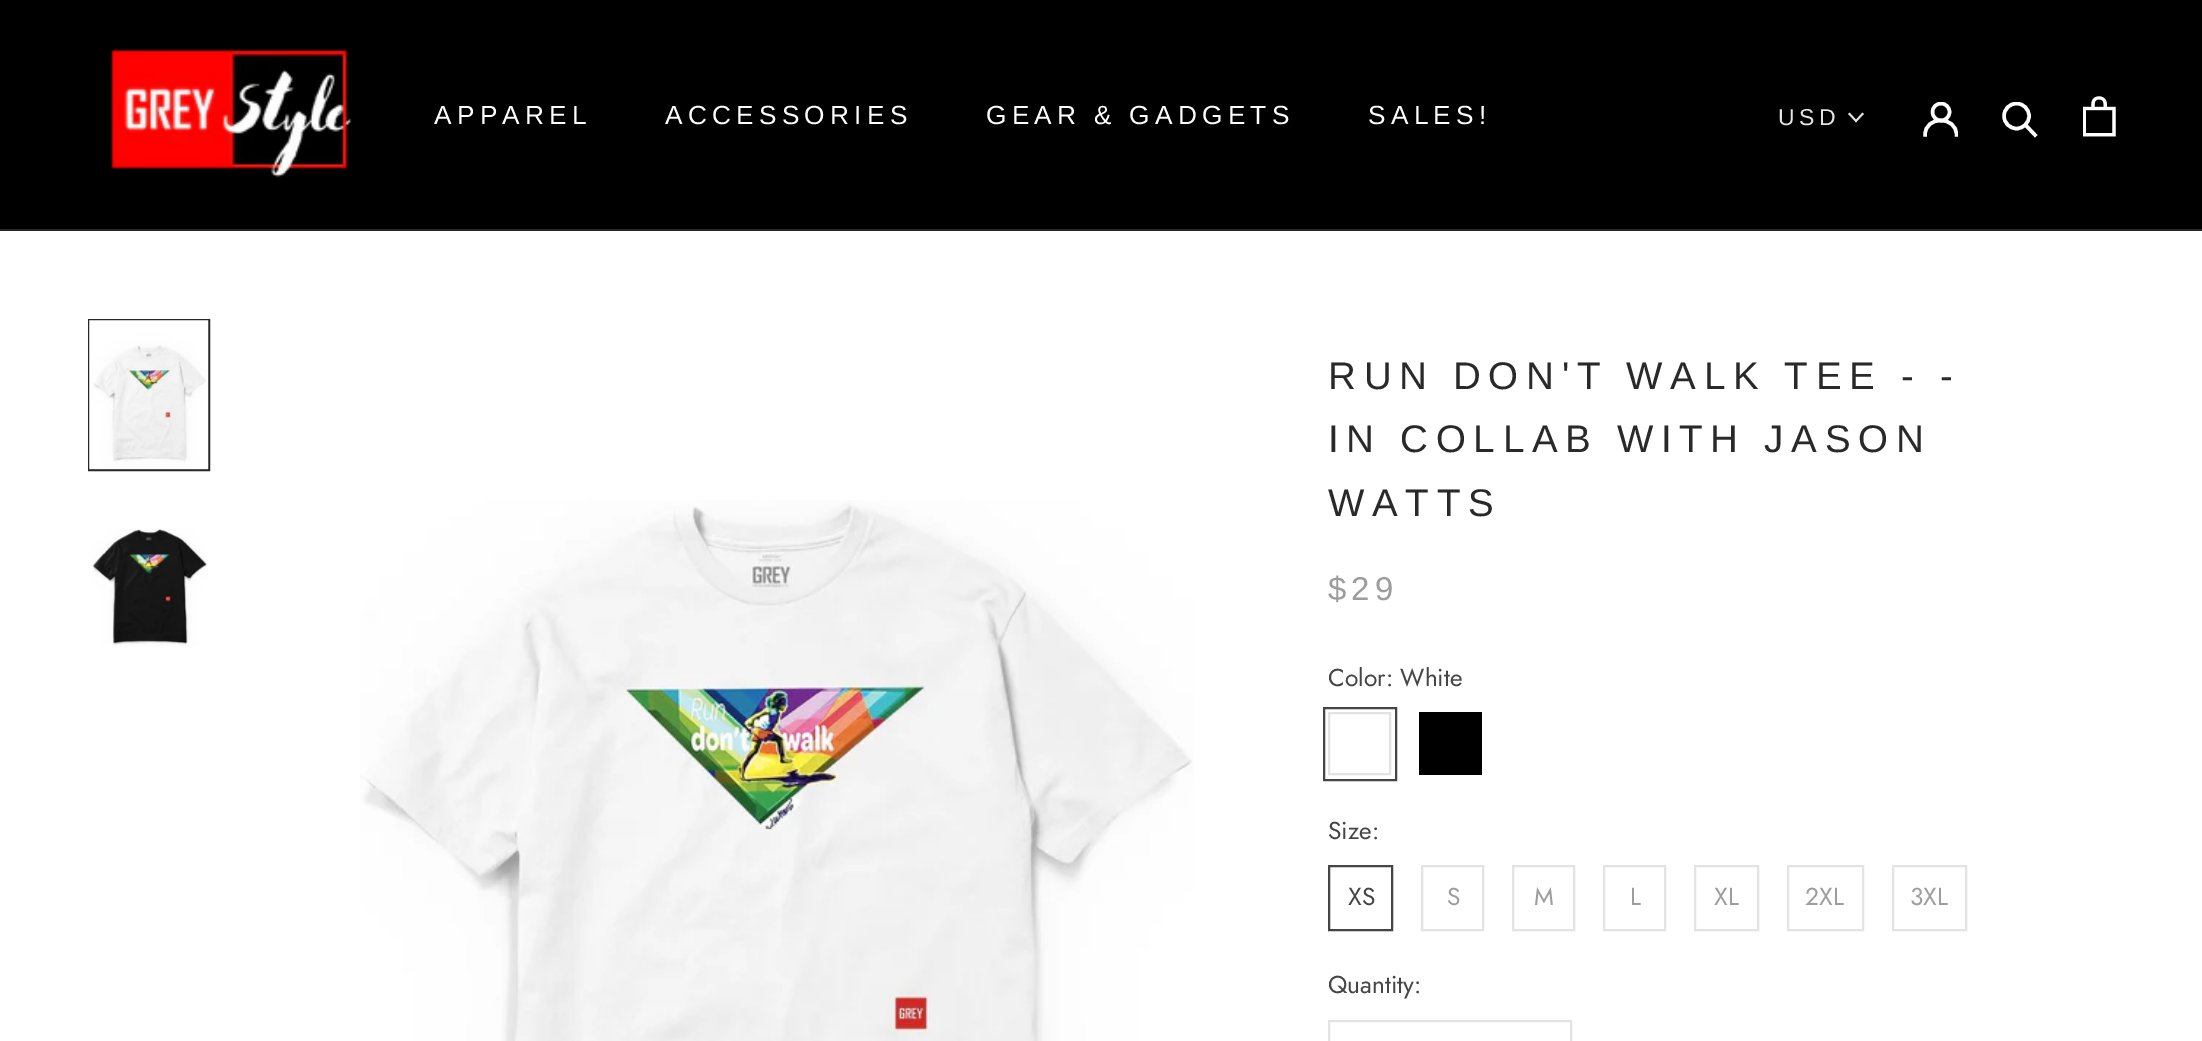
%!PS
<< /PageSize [2202 1041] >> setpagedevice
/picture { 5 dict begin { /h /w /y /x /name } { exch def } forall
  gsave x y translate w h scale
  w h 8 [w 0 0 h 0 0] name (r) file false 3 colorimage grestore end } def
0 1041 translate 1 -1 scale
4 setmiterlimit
1 setgray
0 0 2202 1041 rectfill
0 setgray
0 0 2202 229 rectfill
0.149 setgray
0 229 2202 2 rectfill
(img1.rgb) 110 49 242 129 picture
/LiberationSans-Regular [26.25 0 0 -26.25 0 0] selectfont
1 setgray
434 124 moveto 5.25 0 (APPAREL) ashow
665 124 moveto 5.25 0 (ACCESSORIES) ashow
986 124 moveto 5.25 0 (GEAR & GADGETS) ashow
1368 124 moveto 5.25 0 (SALES!) ashow
/LiberationSans-Regular [23 0 0 -23 0 0] selectfont
0.898 setgray
1778 125 moveto 4.5 0 (USD) ashow
1.8 setlinewidth
2 setlinecap
newpath 1862.5 114 moveto 1856 121 lineto 1849.5 114 lineto stroke
gsave
1923 102 35 35 rectclip
1 setgray
3.5 setlinewidth
newpath 1925 135 moveto 1925 115.5 1956.5 115.5 1956.5 135 curveto stroke
0 setlinecap
newpath 1941 112 8.5 0 360 arc closepath stroke
grestore
1 setgray
3.5 setlinewidth
newpath 2035 135 moveto 2025.5 125 lineto stroke
gsave
2002 102 37 36 rectclip
0 setlinecap
newpath 2016.5 116 12.5 0 360 arc closepath stroke
grestore
(img2.rgb) 2083 96 33 41 picture
0.161 setgray
2 setlinewidth
0 setlinecap
89 320 120 150 rectstroke
(img3.rgb) 89 320 120 150 picture
(img4.rgb) 92 528 116 118 picture
(img5.rgb) 360 500 834 541 picture
/LiberationSans-Regular [38.5 0 0 -38.5 0 0] selectfont
1328 389 moveto 7.7 0 (RUN DON'T WALK TEE - -) ashow
1328 452 moveto 7.7 0 (IN COLLAB WITH JASON) ashow
1328 516 moveto 7.7 0 (WATTS) ashow
/LiberationSans-Regular [33 0 0 -33 0 0] selectfont
0.616 setgray
1328 600 moveto 5 0 ($29) ashow
/Jost-Regular [24.5 0 0 -24.5 0 0] selectfont
0.271 setgray
1328 686 moveto (Color: White) show
0.89 setgray
1329 713 61 61 rectstroke
0.271 setgray
1324 708 72 72 rectstroke
0 setgray
1419 712 63 63 rectfill
0.271 setgray
1328 839 moveto (Size:) show
1329 866 63 64 rectstroke
1348 905 moveto (XS) show
0.89 setgray
1422 866 61 64 rectstroke
0.616 setgray
1447 905 moveto (S) show
0.89 setgray
1513 866 61 64 rectstroke
0.616 setgray
1534 905 moveto (M) show
0.89 setgray
1604 866 61 64 rectstroke
0.616 setgray
1630 905 moveto (L) show
0.89 setgray
1695 866 63 64 rectstroke
0.616 setgray
1714 905 moveto (XL) show
0.89 setgray
1788 866 75 64 rectstroke
0.616 setgray
1805 905 moveto (2XL) show
0.89 setgray
1893 866 73 64 rectstroke
0.616 setgray
1910 905 moveto (3XL) show
0.271 setgray
1328 993 moveto (Quantity:) show
0.89 setgray
1329 1021 242 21 rectstroke
showpage
